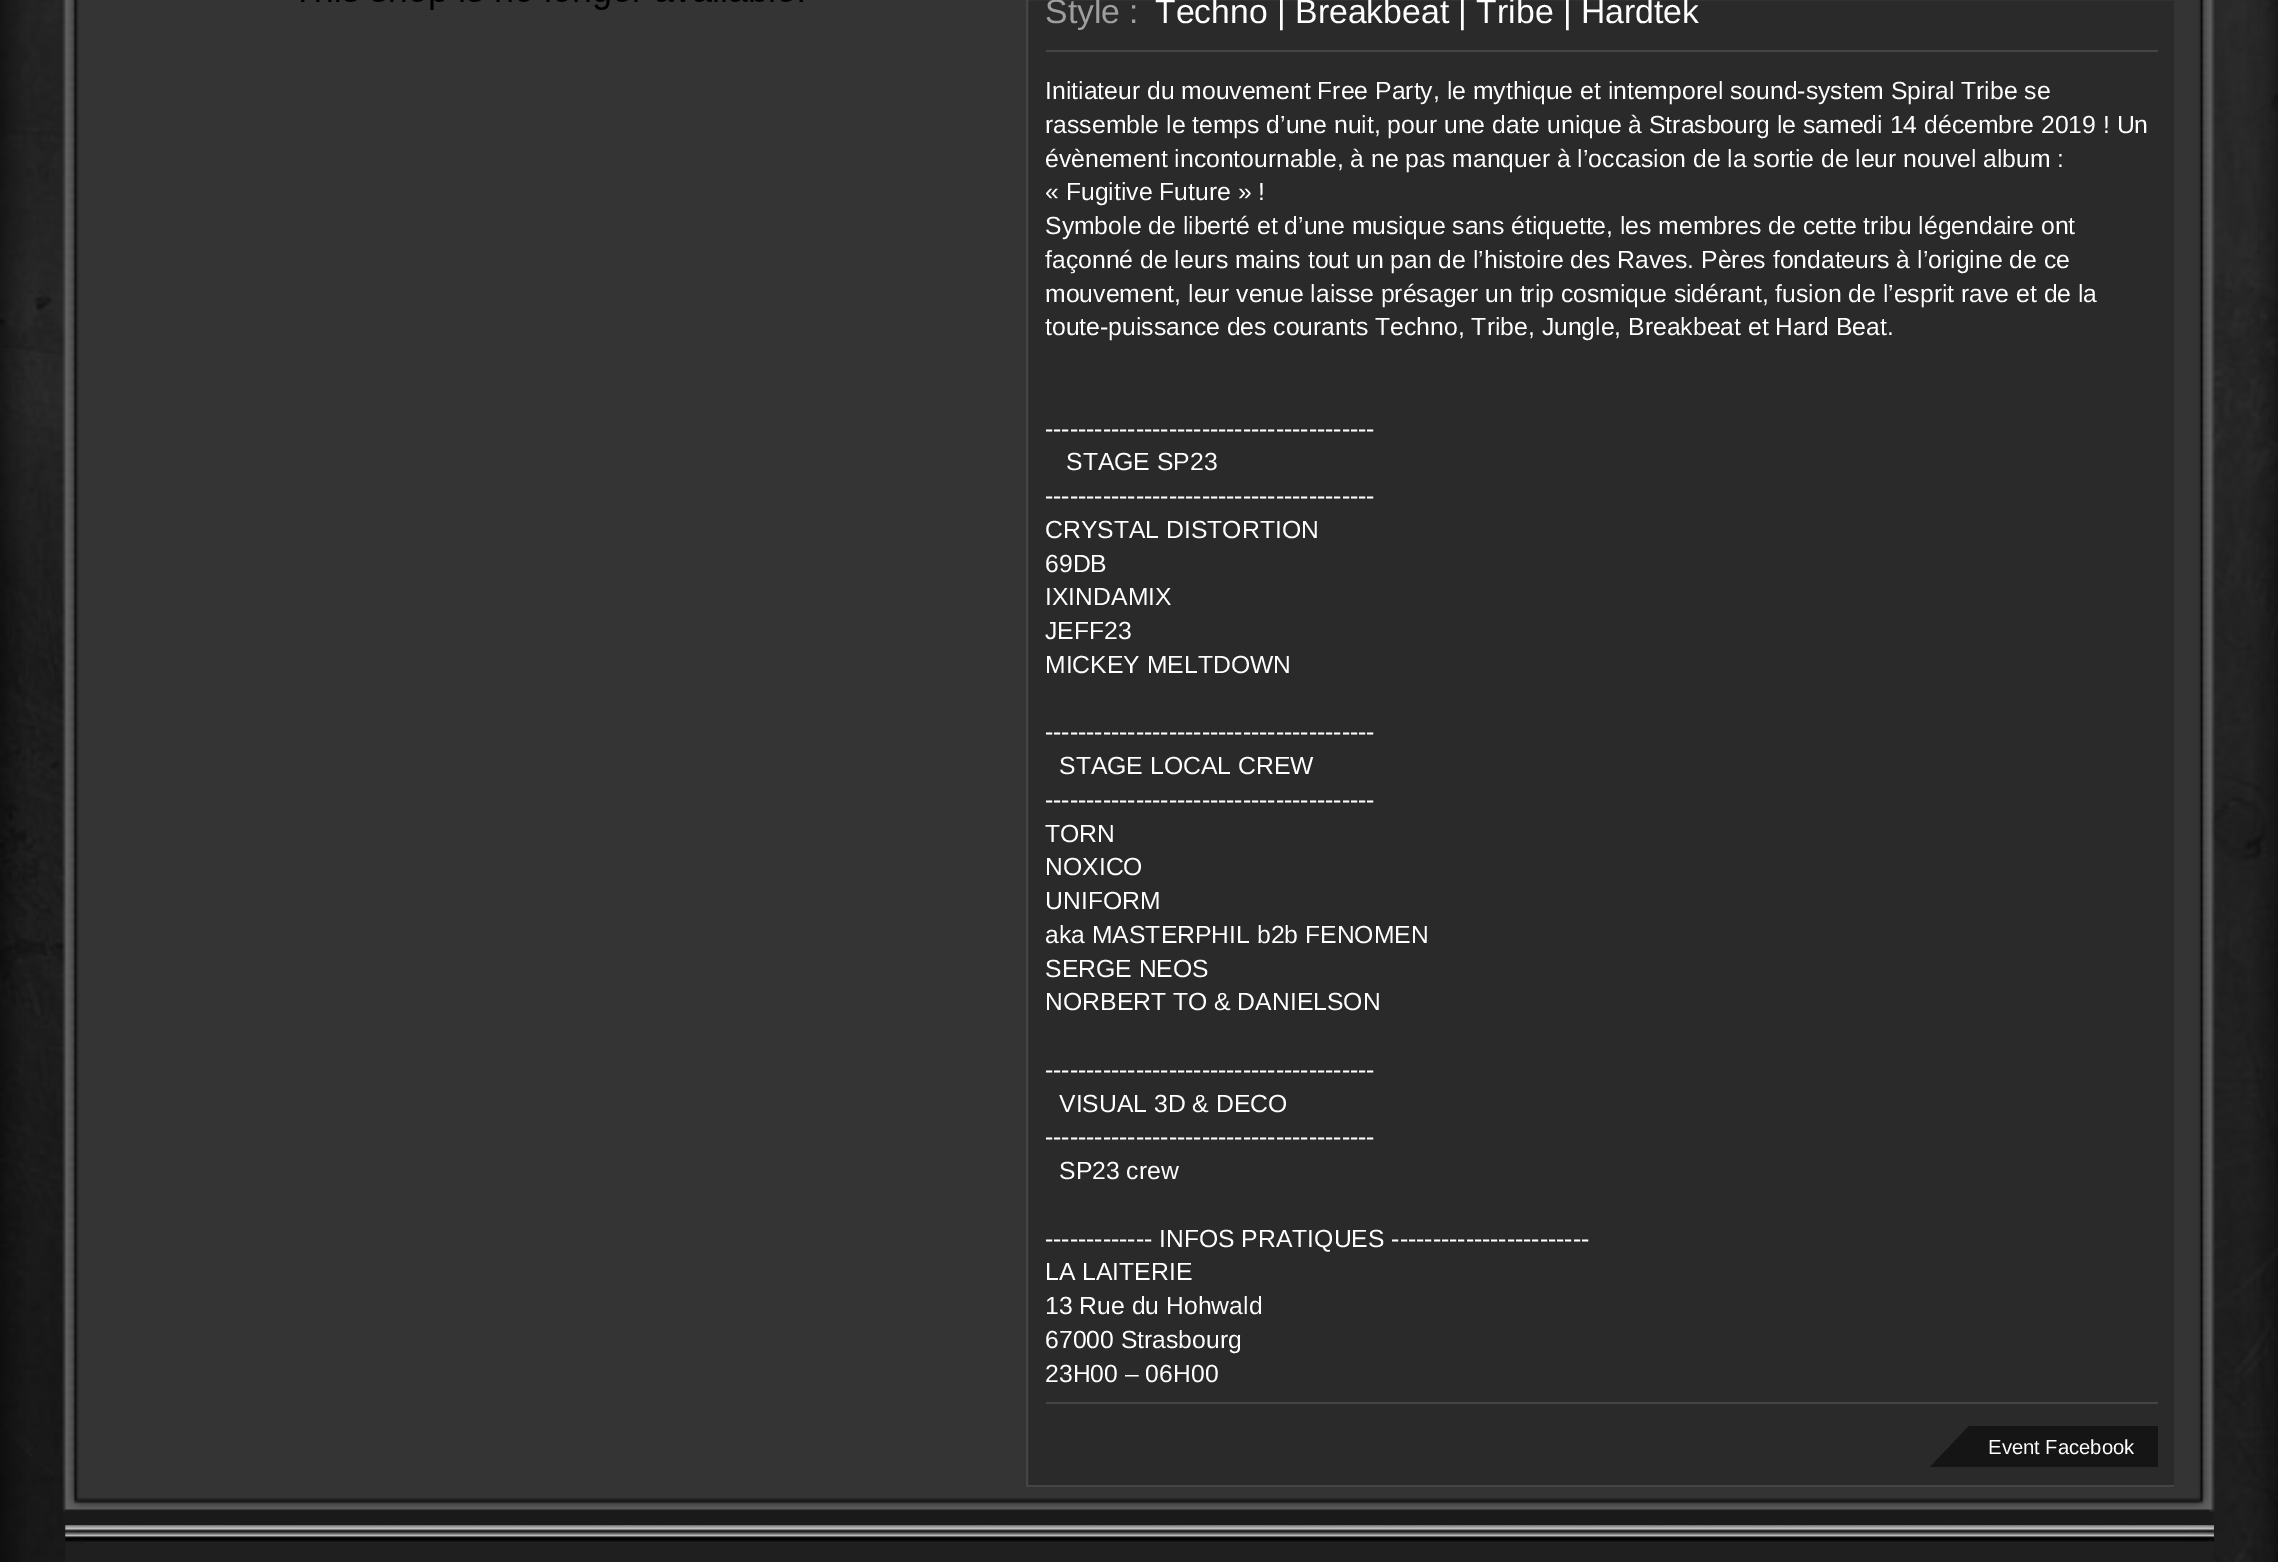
%!PS
<< /PageSize [2278 1562] >> setpagedevice
/picture { 5 dict begin { /h /w /y /x /name } { exch def } forall
  gsave x y translate w h scale
  w h 8 [w 0 0 h 0 0] name (r) file false 3 colorimage grestore end } def
0 1562 translate 1 -1 scale
4 setmiterlimit
1 setgray
0 0 2278 1562 rectfill
(img1.rgb) 0 684 2278 878 picture
(img2.rgb) 0 0 2278 684 picture
(img3.rgb) 0 0 2278 1562 picture
(img4.rgb) 62 0 2153 1487 picture
(img5.rgb) 301 0 502 10 picture
0.165 setgray
1028 0 1146 1485 rectfill
gsave
999 0 1175 1487 rectclip
0.271 setgray
2 setlinewidth
1027 -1 1150 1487 rectstroke
grestore
0.271 setgray
1046 50 1112 2 rectfill
/LiberationSans-Regular [33.75 0 0 -33.75 0 0] selectfont
0.62 setgray
1045 23 moveto (Style :) show
1 setgray
1155 23 moveto (Techno | Breakbeat | Tribe | Hardtek) show
0.271 setgray
1046 1402 1112 2 rectfill
/LiberationSans-Regular [24.75 0 0 -24.75 0 0] selectfont
1 setgray
1045 99 moveto (Initiateur du mouvement Free Party, le mythique et intemporel sound-system Spiral Tribe se) show
1045 133 moveto (rassemble le temps d’une nuit, pour une date unique à Strasbourg le samedi 14 décembre 2019 ! Un) show
1045 167 moveto (évènement incontournable, à ne pas manquer à l’occasion de la sortie de leur nouvel album :) show
1045 200 moveto (« Fugitive Future » !) show
1045 234 moveto (Symbole de liberté et d’une musique sans étiquette, les membres de cette tribu légendaire ont) show
1045 268 moveto (façonné de leurs mains tout un pan de l’histoire des Raves. Pères fondateurs à l’origine de ce) show
1045 302 moveto (mouvement, leur venue laisse présager un trip cosmique sidérant, fusion de l’esprit rave et de la) show
1045 335 moveto (toute-puissance des courants Techno, Tribe, Jungle, Breakbeat et Hard Beat.) show
1045 437 moveto (----------------------------------------) show
1066 470 moveto (STAGE SP23) show
1045 504 moveto (----------------------------------------) show
1045 538 moveto (CRYSTAL DISTORTION) show
1045 572 moveto (69DB) show
1045 605 moveto (IXINDAMIX) show
1045 639 moveto (JEFF23) show
1045 673 moveto (MICKEY MELTDOWN) show
1045 740 moveto (----------------------------------------) show
1059 774 moveto (STAGE LOCAL CREW) show
1045 808 moveto (----------------------------------------) show
1045 842 moveto (TORN) show
1045 875 moveto (NOXICO) show
1045 909 moveto (UNIFORM) show
1045 943 moveto (aka MASTERPHIL b2b FENOMEN) show
1045 977 moveto (SERGE NEOS) show
1045 1010 moveto (NORBERT TO & DANIELSON) show
1045 1078 moveto (----------------------------------------) show
1059 1112 moveto (VISUAL 3D & DECO) show
1045 1145 moveto (----------------------------------------) show
1059 1179 moveto (SP23 crew) show
1045 1247 moveto (------------- INFOS PRATIQUES ------------------------) show
1045 1280 moveto (LA LAITERIE) show
1045 1314 moveto (13 Rue du Hohwald) show
1045 1348 moveto (67000 Strasbourg) show
1045 1382 moveto (23H00 – 06H00) show
0.082 setgray
newpath 2158 1467 moveto 1930 1467 lineto 1969 1426 lineto 2158 1426 lineto closepath fill
/LiberationSans-Regular [20.25 0 0 -20.25 0 0] selectfont
1 setgray
1988 1454 moveto (Event Facebook) show
(img6.rgb) 62 1487 2153 38 picture
(img7.rgb) 65 1525 2149 37 picture
showpage
